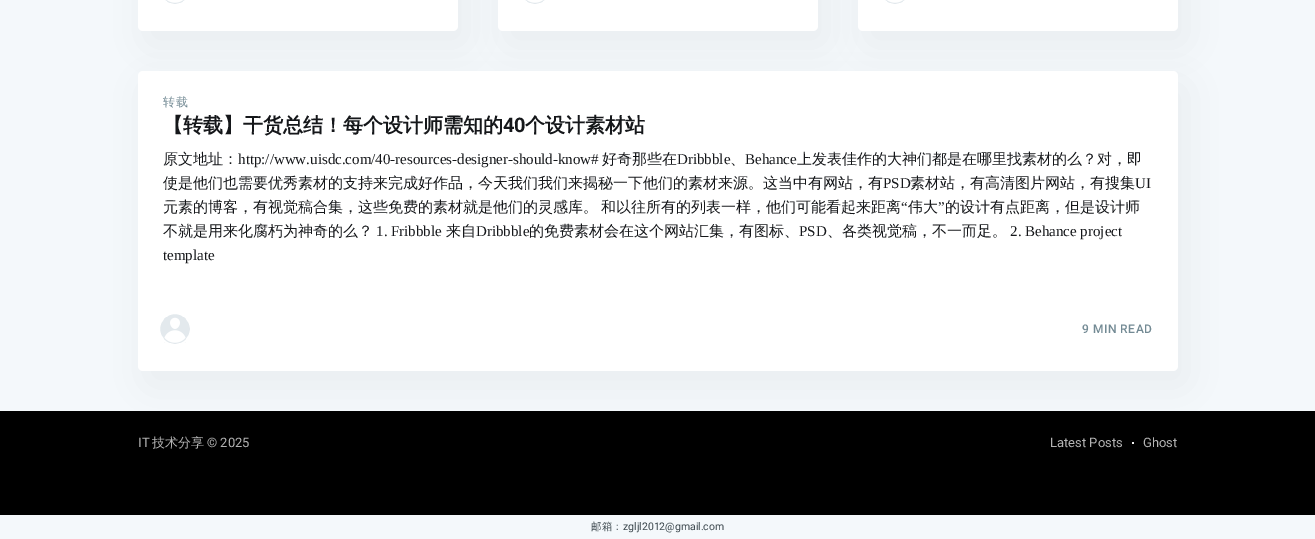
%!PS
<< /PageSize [1315 539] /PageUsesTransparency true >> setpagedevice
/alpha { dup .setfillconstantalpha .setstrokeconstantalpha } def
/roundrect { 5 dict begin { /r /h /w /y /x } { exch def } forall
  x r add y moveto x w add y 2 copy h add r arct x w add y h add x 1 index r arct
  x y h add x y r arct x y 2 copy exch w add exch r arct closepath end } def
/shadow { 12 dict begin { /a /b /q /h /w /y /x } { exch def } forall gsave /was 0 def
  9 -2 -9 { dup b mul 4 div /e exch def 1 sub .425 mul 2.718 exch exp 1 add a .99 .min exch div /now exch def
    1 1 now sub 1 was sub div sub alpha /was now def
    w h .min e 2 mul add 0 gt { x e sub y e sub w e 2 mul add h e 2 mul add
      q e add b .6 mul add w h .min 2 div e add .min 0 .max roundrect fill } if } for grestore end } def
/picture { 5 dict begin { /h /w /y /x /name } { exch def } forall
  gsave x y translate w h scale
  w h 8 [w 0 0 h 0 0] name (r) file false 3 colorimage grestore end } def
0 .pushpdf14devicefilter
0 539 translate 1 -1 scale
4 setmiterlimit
0.957 0.973 0.984 setrgbcolor
0 0 1315 539 rectfill
0.153 0.173 0.192 setrgbcolor
146 -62 320 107 5 19 0.06 shadow
1 setgray
138 -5 320 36 5 roundrect fill
0.89 0.914 0.929 setrgbcolor
159 -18 32 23 16 roundrect gsave fill grestore
1 setgray
2 setlinewidth
stroke
(img1.rgb) 167 0 16 3 picture
0.153 0.173 0.192 setrgbcolor
506 -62 320 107 5 19 0.06 shadow
1 setgray
498 -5 320 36 5 roundrect fill
0.89 0.914 0.929 setrgbcolor
519 -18 32 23 16 roundrect gsave fill grestore
1 setgray
stroke
(img1.rgb) 527 0 16 3 picture
0.153 0.173 0.192 setrgbcolor
866 -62 320 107 5 19 0.06 shadow
1 setgray
858 -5 320 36 5 roundrect fill
0.89 0.914 0.929 setrgbcolor
879 -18 32 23 16 roundrect gsave fill grestore
1 setgray
stroke
(img1.rgb) 887 0 16 3 picture
0 setgray
0 411 1315 104 rectfill
1 setgray
newpath 1133 443 1 0 360 arc closepath fill
0.153 0.173 0.192 setrgbcolor
146 85 1040 300 5 19 0.06 shadow
1 setgray
138 71 1040 300 5 roundrect fill
/WenQuanYiZenHei-Medium [12 0 0 -12 0 0] selectfont
0.451 0.541 0.58 setrgbcolor
163 106 moveto 0.5 0 (转载) ashow
/WenQuanYiZenHei-Bold [20 0 0 -20 0 0] selectfont
0.082 0.09 0.102 setrgbcolor
163 132 moveto (【转载】干货总结！每个设计师需知的) show
/Roboto-Bold [20 0 0 -20 0 0] selectfont
503 132 moveto (40) show
/WenQuanYiZenHei-Bold [20 0 0 -20 0 0] selectfont
525 132 moveto (个设计素材站) show
/WenQuanYiZenHei-Medium [15 0 0 -15 0 0] selectfont
163 164 moveto (原文地址：) show
/LiberationSerif-Regular [15 0 0 -15 0 0] selectfont
238 164 moveto (http://www.uisdc.com/40-resources-designer-should-know#) show
/WenQuanYiZenHei-Medium [15 0 0 -15 0 0] selectfont
602 164 moveto (好奇那些在) show
/LiberationSerif-Regular [15 0 0 -15 0 0] selectfont
677 164 moveto (Dribbble) show
/WenQuanYiZenHei-Medium [15 0 0 -15 0 0] selectfont
730 164 moveto (、) show
/LiberationSerif-Regular [15 0 0 -15 0 0] selectfont
745 164 moveto (Behance) show
/WenQuanYiZenHei-Medium [15 0 0 -15 0 0] selectfont
797 164 moveto (上发表佳作的大神们都是在哪里找素材的么？对，即) show
163 188 moveto (使是他们也需要优秀素材的支持来完成好作品，今天我们我们来揭秘一下他们的素材来源。这当中有网站，有) show
/LiberationSerif-Regular [15 0 0 -15 0 0] selectfont
883 188 moveto (PSD) show
/WenQuanYiZenHei-Medium [15 0 0 -15 0 0] selectfont
910 188 moveto (素材站，有高清图片网站，有搜集) show
/LiberationSerif-Regular [15 0 0 -15 0 0] selectfont
1135 188 moveto (UI) show
/WenQuanYiZenHei-Medium [15 0 0 -15 0 0] selectfont
163 212 moveto (元素的博客，有视觉稿合集，这些免费的素材就是他们的灵感库。) show
601 212 moveto (和以往所有的列表一样，他们可能看起来距离) show
/LiberationSerif-Regular [15 0 0 -15 0 0] selectfont
901 212 moveto (“) show
/WenQuanYiZenHei-Medium [15 0 0 -15 0 0] selectfont
908 212 moveto (伟大) show
/LiberationSerif-Regular [15 0 0 -15 0 0] selectfont
938 212 moveto (”) show
/WenQuanYiZenHei-Medium [15 0 0 -15 0 0] selectfont
945 212 moveto (的设计有点距离，但是设计师) show
163 236 moveto (不就是用来化腐朽为神奇的么？) show
/LiberationSerif-Regular [15 0 0 -15 0 0] selectfont
376 236 moveto (1. Fribbble) show
/WenQuanYiZenHei-Medium [15 0 0 -15 0 0] selectfont
446 236 moveto (来自) show
/LiberationSerif-Regular [15 0 0 -15 0 0] selectfont
476 236 moveto (Dribbble) show
/WenQuanYiZenHei-Medium [15 0 0 -15 0 0] selectfont
529 236 moveto (的免费素材会在这个网站汇集，有图标、) show
/LiberationSerif-Regular [15 0 0 -15 0 0] selectfont
799 236 moveto (PSD) show
/WenQuanYiZenHei-Medium [15 0 0 -15 0 0] selectfont
827 236 moveto (、各类视觉稿，不一而足。) show
/LiberationSerif-Regular [15 0 0 -15 0 0] selectfont
1010 236 moveto (2. Behance project) show
163 260 moveto (template) show
0.89 0.914 0.929 setrgbcolor
newpath 175 329 16 0 360 arc closepath gsave fill grestore
1 setgray
stroke
(img2.rgb) 164 317 22 26 picture
/Roboto-Medium [12 0 0 -12 0 0] selectfont
0.451 0.541 0.58 setrgbcolor
1082 333 moveto 0.5 0 (9 MIN READ) ashow
/Roboto-Regular [13 0 0 -13 0 0] selectfont
0.702 setgray
138 447 moveto (IT) show
/WenQuanYiZenHei-Medium [13 0 0 -13 0 0] selectfont
152 447 moveto (技术分享) show
/Roboto-Regular [13 0 0 -13 0 0] selectfont
207 447 moveto (© 2025) show
1050 447 moveto (Latest Posts) show
1143 447 moveto (Ghost) show
/WenQuanYiZenHei-Medium [10.5 0 0 -10.5 0 0] selectfont
0.235 0.282 0.306 setrgbcolor
591 530 moveto (邮箱：) show
/Roboto-Regular [10.5 0 0 -10.5 0 0] selectfont
623 530 moveto (zgljl2012@gmail.com) show
.poppdf14devicefilter showpage
